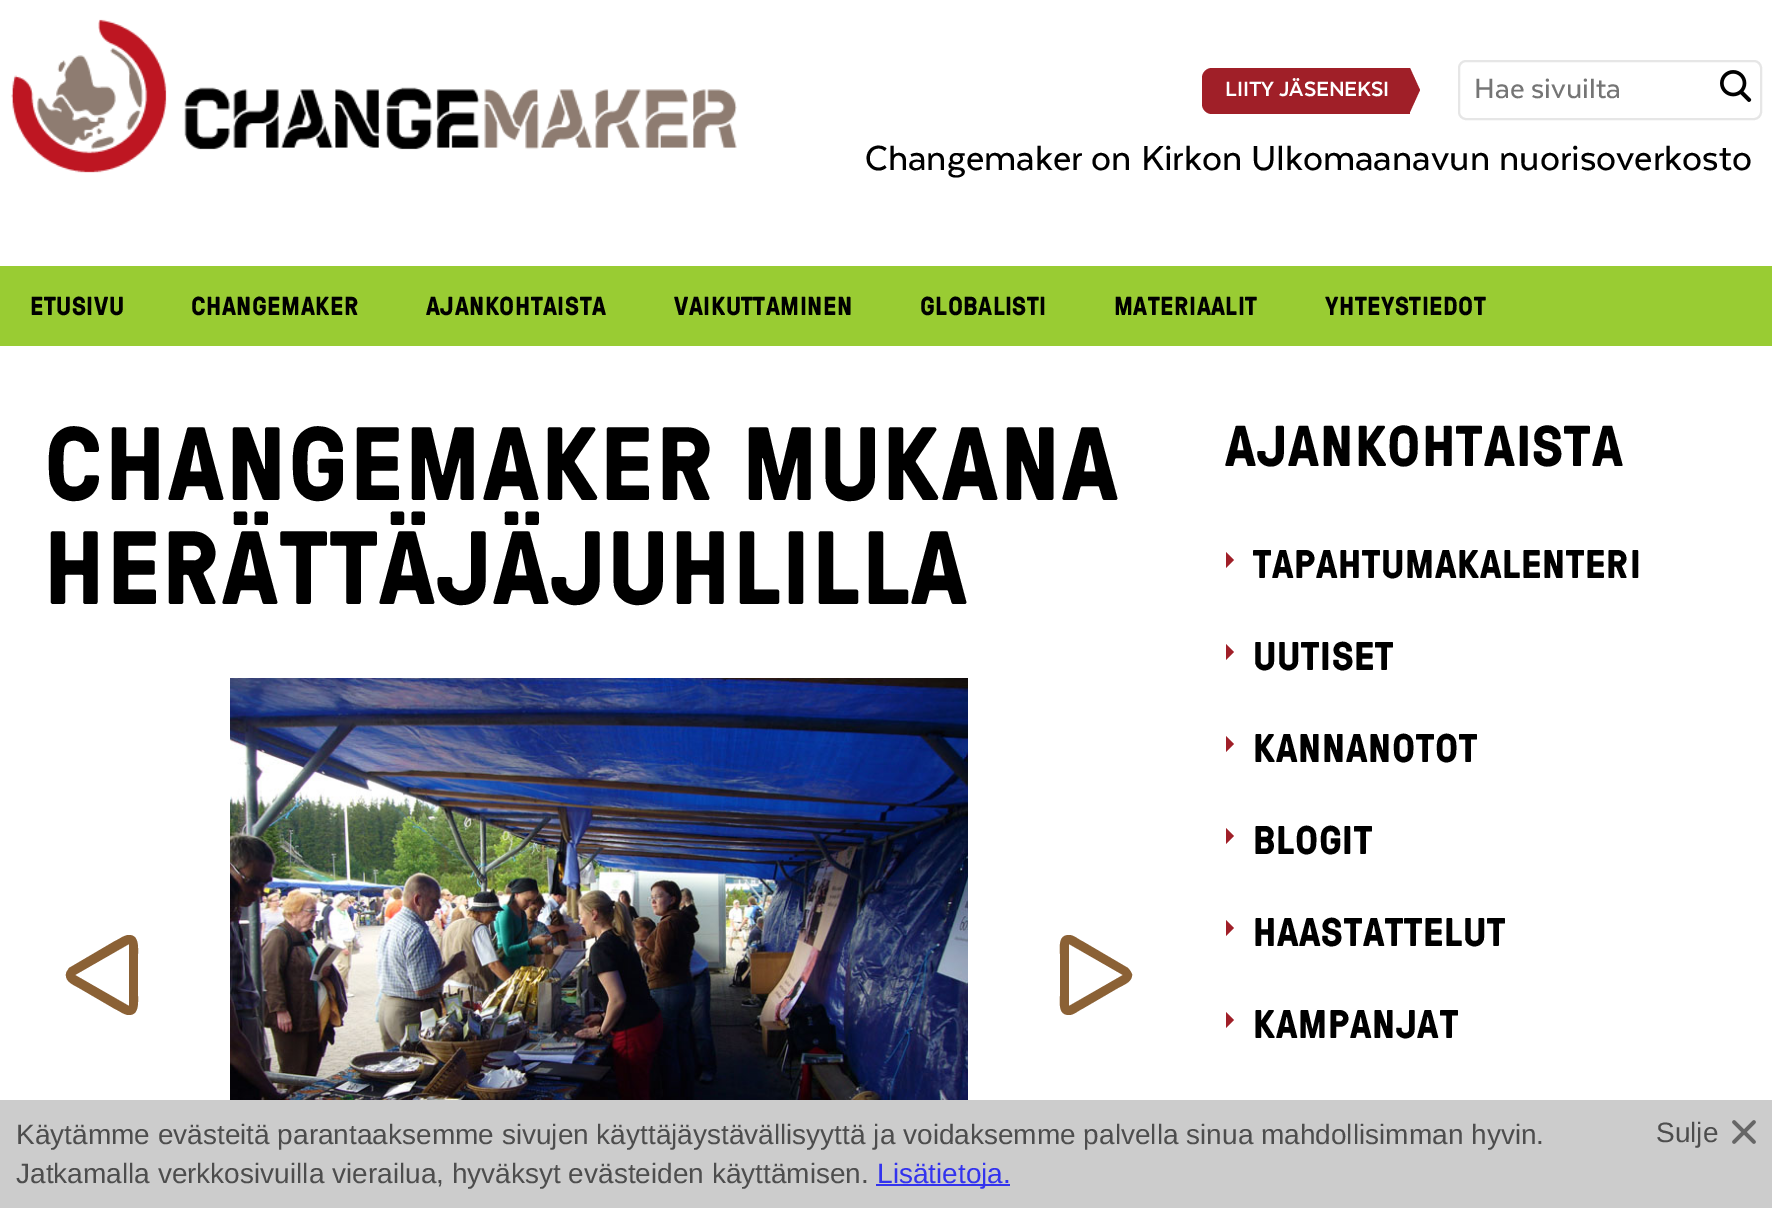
%!PS
<< /PageSize [1772 1208] >> setpagedevice
/roundrect { 5 dict begin { /r /h /w /y /x } { exch def } forall
  x r add y moveto x w add y 2 copy h add r arct x w add y h add x 1 index r arct
  x y h add x y r arct x y 2 copy exch w add exch r arct closepath end } def
/picture { 5 dict begin { /h /w /y /x /name } { exch def } forall
  gsave x y translate w h scale
  w h 8 [w 0 0 h 0 0] name (r) file false 3 colorimage grestore end } def
0 1208 translate 1 -1 scale
4 setmiterlimit
1 setgray
0 0 1772 1208 rectfill
(img1.rgb) 11 19 726 154 picture
0.627 0.122 0.157 setrgbcolor
newpath 1212 68 moveto 1410 68 lineto 1410 114 lineto 1212 114 lineto 1206.5 114 1202 109.5 1202 104 curveto 1202 78 lineto 1202 72.5 1206.5 68 1212 68 curveto closepath fill
/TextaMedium-Bold [22.75 0 0 -22.75 0 0] selectfont
1 setgray
1225 96 moveto 0.5 0 (LIITY JÄSENEKSI) ashow
0.627 0.122 0.157 setrgbcolor
newpath 1410 112 moveto 1410 68 lineto 1420 90 lineto closepath fill
0.902 setgray
2 setlinewidth
1459 61 302 58 7 roundrect stroke
/TextaMedium-Medium [32 0 0 -32 0 0] selectfont
0.459 setgray
1474 98 moveto (Hae sivuilta) show
(img2.rgb) 1720 70 32 32 picture
/TextaMedium-Medium [40 0 0 -40 0 0] selectfont
0 setgray
865 170 moveto (Changemaker on Kirkon Ulkomaanavun nuorisoverkosto) show
0.6 0.8 0.2 setrgbcolor
0 266 1772 80 rectfill
/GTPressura-Bold [26 0 0 -26 0 0] selectfont
0 setgray
30 315 moveto 0.5 0 (ETUSIVU) ashow
191 315 moveto 0.5 0 (CHANGEMAKER) ashow
426 315 moveto 0.5 0 (AJANKOHTAISTA) ashow
674 315 moveto 0.5 0 (VAIKUTTAMINEN) ashow
920 315 moveto 0.5 0 (GLOBALISTI) ashow
1114 315 moveto 0.5 0 (MATERIAALIT) ashow
1325 315 moveto 0.5 0 (YHTEYSTIEDOT) ashow
/GTPressura-Bold [104 0 0 -104 0 0] selectfont
44 500 moveto 2.1 0 (CHANGEMAKER MUKANA) ashow
44 604 moveto 2.1 0 (HERÄTTÄJÄJUHLILLA) ashow
(img3.rgb) 230 678 738 422 picture
0.545 0.38 0.208 setrgbcolor
newpath 129 944 moveto 129 1006 lineto 75 975 lineto closepath 129 935 moveto 124 935 118 940 115 941 curveto 69 968 lineto 68 970 66 972 66 974 curveto 65 982 74 985 79 988 curveto 115 1009 lineto 118 1010 124 1015 129 1015 curveto 139 1015 138 1003 138 996 curveto 138 954 lineto 138 947 139 935 129 935 curveto closepath fill
newpath 1069 944 moveto 1123 975 lineto 1069 1006 lineto closepath 1069 935 moveto 1058 935 1060 947 1060 954 curveto 1060 996 lineto 1060 1003 1058 1015 1069 1015 curveto 1074 1015 1079 1010 1082 1009 curveto 1118 988 lineto 1123 985 1133 982 1132 974 curveto 1131 972 1130 970 1128 968 curveto 1082 941 lineto 1079 940 1074 935 1069 935 curveto closepath fill
/GTPressura-Bold [57.5 0 0 -57.5 0 0] selectfont
0 setgray
1225 466 moveto 1.1 0 (AJANKOHTAISTA) ashow
0.627 0.122 0.157 setrgbcolor
newpath 1226 568 moveto 1226 552 lineto 1234 560 lineto closepath fill
/GTPressura-Bold [40 0 0 -40 0 0] selectfont
0 setgray
1253 578 moveto 0.75 0 (TAPAHTUMAKALENTERI) ashow
0.627 0.122 0.157 setrgbcolor
newpath 1226 660 moveto 1226 644 lineto 1234 652 lineto closepath fill
0 setgray
1253 670 moveto 0.75 0 (UUTISET) ashow
0.627 0.122 0.157 setrgbcolor
newpath 1226 752 moveto 1226 736 lineto 1234 744 lineto closepath fill
0 setgray
1253 762 moveto 0.75 0 (KANNANOTOT) ashow
0.627 0.122 0.157 setrgbcolor
newpath 1226 844 moveto 1226 828 lineto 1234 836 lineto closepath fill
0 setgray
1253 854 moveto 0.75 0 (BLOGIT) ashow
0.627 0.122 0.157 setrgbcolor
newpath 1226 936 moveto 1226 920 lineto 1234 928 lineto closepath fill
0 setgray
1253 946 moveto 0.75 0 (HAASTATTELUT) ashow
0.627 0.122 0.157 setrgbcolor
newpath 1226 1028 moveto 1226 1012 lineto 1234 1020 lineto closepath fill
0 setgray
1253 1038 moveto 0.75 0 (KAMPANJAT) ashow
0.8 setgray
0 1100 1772 108 rectfill
/LiberationSans-Regular [28 0 0 -28 0 0] selectfont
0.302 setgray
16 1144 moveto (Käytämme evästeitä parantaaksemme sivujen käyttäjäystävällisyyttä ja voidaksemme palvella sinua mahdollisimman hyvin.) show
1656 1142 moveto (Sulje) show
(img4.rgb) 1732 1120 24 24 picture
16 1183 moveto (Jatkamalla verkkosivuilla vierailua, hyväksyt evästeiden käyttämisen.) show
0.2 0.2 0.933 setrgbcolor
876 1184 134 2 rectfill
877 1183 moveto (Lisätietoja.) show
showpage
